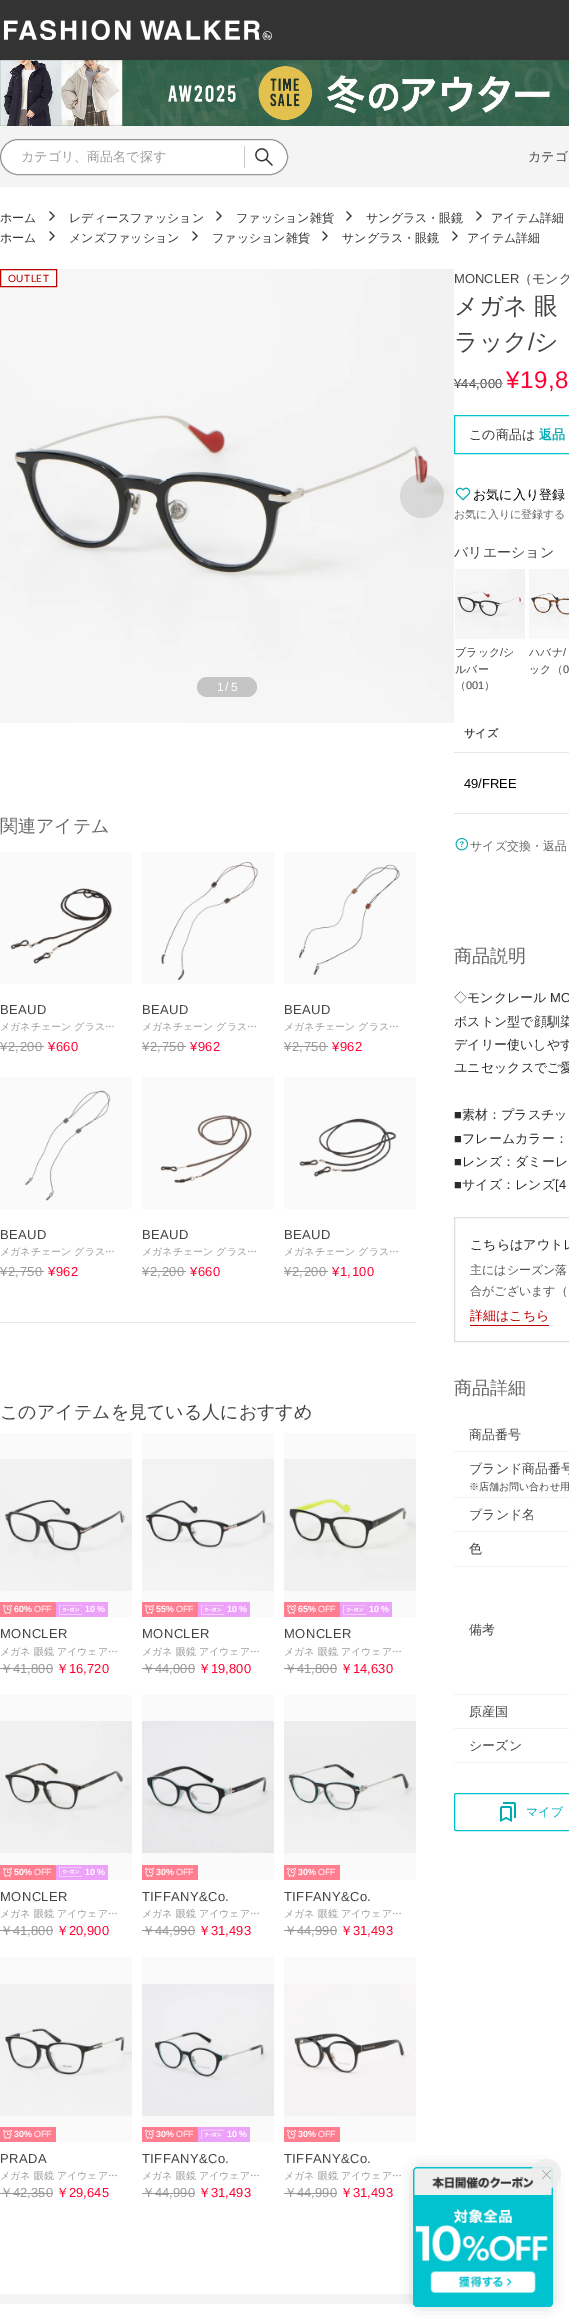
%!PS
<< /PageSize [569 2323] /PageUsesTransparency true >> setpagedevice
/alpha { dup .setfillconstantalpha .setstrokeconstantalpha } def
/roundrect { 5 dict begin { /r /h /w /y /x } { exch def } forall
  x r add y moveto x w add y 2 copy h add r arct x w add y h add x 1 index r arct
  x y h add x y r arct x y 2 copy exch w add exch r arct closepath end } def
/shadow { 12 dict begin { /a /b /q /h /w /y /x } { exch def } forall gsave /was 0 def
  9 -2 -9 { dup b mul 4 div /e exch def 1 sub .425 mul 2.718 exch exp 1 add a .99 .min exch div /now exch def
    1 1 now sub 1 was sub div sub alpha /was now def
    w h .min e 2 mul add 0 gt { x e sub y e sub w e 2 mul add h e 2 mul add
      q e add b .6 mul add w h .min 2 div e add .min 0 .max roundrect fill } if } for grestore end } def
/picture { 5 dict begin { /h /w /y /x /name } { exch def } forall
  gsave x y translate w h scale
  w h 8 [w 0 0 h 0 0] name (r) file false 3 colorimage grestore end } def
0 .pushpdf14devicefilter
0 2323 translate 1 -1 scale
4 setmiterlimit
1 setgray
0 0 569 2323 rectfill
0.98 setgray
284 1957 132 185 rectfill
142 1957 132 185 rectfill
0 1957 132 185 rectfill
284 1695 132 185 rectfill
142 1695 132 185 rectfill
0 1695 132 185 rectfill
284 1433 132 184 rectfill
142 1433 132 184 rectfill
0 1433 132 184 rectfill
284 1077 132 132 rectfill
142 1077 132 132 rectfill
0 1077 132 132 rectfill
284 852 132 132 rectfill
142 852 132 132 rectfill
0 852 132 132 rectfill
0.2 setgray
0 0 569 60 rectfill
(img1.rgb) 4 20 268 20 picture
0.957 setgray
0 126 569 61 rectfill
(img2.rgb) 0 60 569 66 picture
0 2294 414 10 rectfill
0 setgray
419 2173 128 128 0 8 0.4 shadow
(img4.rgb) 413 2167 140 140 picture
0.9 alpha
0.933 setgray
newpath 546 2174 15 0 360 arc closepath fill
1 alpha
(img3.rgb) 541 2169 11 11 picture
1 setgray
0.5 139.5 287 35 17.5 roundrect gsave fill grestore
0.592 setgray
stroke
0.8 setgray
244 146 1 22 rectfill
/WenQuanYiZenHei-Medium [13 0 0 -13 0 0] selectfont
0.6 setgray
21 161 moveto (カテゴリ、商品名で探す) show
(img5.rgb) 255 148 18 18 picture
0.267 setgray
528 161 moveto (カテゴ) show
/WenQuanYiZenHei-Medium [12 0 0 -12 0 0] selectfont
0.2 setgray
0 222 moveto (ホーム) show
(img6.rgb) 49 211 6 10 picture
69 222 moveto (レディースファッション) show
(img6.rgb) 216 211 6 10 picture
236 222 moveto (ファッション雑貨) show
(img6.rgb) 346 211 6 10 picture
366 222 moveto (サングラス・眼鏡) show
(img6.rgb) 476 211 6 10 picture
491 222 moveto (アイテム詳細) show
0 242 moveto (ホーム) show
(img6.rgb) 49 231 6 10 picture
69 242 moveto (メンズファッション) show
(img6.rgb) 192 231 6 10 picture
212 242 moveto (ファッション雑貨) show
(img6.rgb) 322 231 6 10 picture
342 242 moveto (サングラス・眼鏡) show
(img6.rgb) 452 231 6 10 picture
467 242 moveto (アイテム詳細) show
(img7.rgb) 0 269 454 454 picture
0.992 setgray
newpath 0.5 269.5 moveto 56.5 269.5 lineto 56.5 286.5 lineto 0.5 286.5 lineto closepath gsave fill grestore
0.733 0.008 0 setrgbcolor
stroke
/Lato-Regular [10 0 0 -10 0 0] selectfont
0.733 0 0 setrgbcolor
8 282 moveto 0.5 0 (OUTLET) ashow
0.1 alpha
0 setgray
newpath 422 496 22 0 360 arc closepath fill
1 alpha
0.773 setgray
197 677 60 20 10 roundrect fill
/LiberationSans-Regular [12 0 0 -12 0 0] selectfont
1 setgray
217 691 moveto (1) show
225 691 moveto (/) show
231 691 moveto (5) show
0.902 setgray
0 1322 416 1 rectfill
/WenQuanYiZenHei-Medium [18 0 0 -18 0 0] selectfont
0.4 setgray
0 832 moveto (関連アイテム) show
(img8.rgb) 10 888 103 76 picture
/LiberationSans-Regular [13 0 0 -13 0 0] selectfont
0.267 setgray
0 1014 moveto 0.4 0 (BEAUD) ashow
/WenQuanYiZenHei-Medium [10 0 0 -10 0 0] selectfont
0.6 setgray
0 1030 moveto (メガネチェーン グラス…) show
/LiberationSans-Regular [13 0 0 -13 0 0] selectfont
0 1051 moveto 0.5 0 (¥2,200) ashow
0 1046 44 1 rectfill
1 0 0.188 setrgbcolor
48 1051 moveto 0.5 0 (¥660) ashow
(img9.rgb) 161 862 98 119 picture
0.267 setgray
142 1014 moveto 0.4 0 (BEAUD) ashow
/WenQuanYiZenHei-Medium [10 0 0 -10 0 0] selectfont
0.6 setgray
142 1030 moveto (メガネチェーン グラス…) show
/LiberationSans-Regular [13 0 0 -13 0 0] selectfont
142 1051 moveto 0.5 0 (¥2,750) ashow
142 1046 44 1 rectfill
1 0 0.188 setrgbcolor
190 1051 moveto 0.5 0 (¥962) ashow
(img10.rgb) 298 864 102 111 picture
0.267 setgray
284 1014 moveto 0.4 0 (BEAUD) ashow
/WenQuanYiZenHei-Medium [10 0 0 -10 0 0] selectfont
0.6 setgray
284 1030 moveto (メガネチェーン グラス…) show
/LiberationSans-Regular [13 0 0 -13 0 0] selectfont
284 1051 moveto 0.5 0 (¥2,750) ashow
284 1046 44 1 rectfill
1 0 0.188 setrgbcolor
332 1051 moveto 0.5 0 (¥962) ashow
(img11.rgb) 24 1090 87 111 picture
0.267 setgray
0 1239 moveto 0.4 0 (BEAUD) ashow
/WenQuanYiZenHei-Medium [10 0 0 -10 0 0] selectfont
0.6 setgray
0 1255 moveto (メガネチェーン グラス…) show
/LiberationSans-Regular [13 0 0 -13 0 0] selectfont
0 1276 moveto 0.5 0 (¥2,750) ashow
0 1271 44 1 rectfill
1 0 0.188 setrgbcolor
48 1276 moveto 0.5 0 (¥962) ashow
(img12.rgb) 160 1115 92 69 picture
0.267 setgray
142 1239 moveto 0.4 0 (BEAUD) ashow
/WenQuanYiZenHei-Medium [10 0 0 -10 0 0] selectfont
0.6 setgray
142 1255 moveto (メガネチェーン グラス…) show
/LiberationSans-Regular [13 0 0 -13 0 0] selectfont
142 1276 moveto 0.5 0 (¥2,200) ashow
142 1271 44 1 rectfill
1 0 0.188 setrgbcolor
190 1276 moveto 0.5 0 (¥660) ashow
(img13.rgb) 299 1118 98 59 picture
0.267 setgray
284 1239 moveto 0.4 0 (BEAUD) ashow
/WenQuanYiZenHei-Medium [10 0 0 -10 0 0] selectfont
0.6 setgray
284 1255 moveto (メガネチェーン グラス…) show
/LiberationSans-Regular [13 0 0 -13 0 0] selectfont
284 1276 moveto 0.5 0 (¥2,200) ashow
284 1271 44 1 rectfill
1 0 0.188 setrgbcolor
332 1276 moveto 0.5 0 (¥1,100) ashow
/WenQuanYiZenHei-Medium [18 0 0 -18 0 0] selectfont
0.267 setgray
0 1418 moveto (このアイテムを見ている人におすすめ) show
(img14.rgb) 0 1459 132 132 picture
0.996 0.49 0.561 setrgbcolor
0 1602 56 15 rectfill
(img15.rgb) 3 1605 9 10 picture
/LiberationSans-Bold [9 0 0 -9 0 0] selectfont
1 setgray
14 1612 moveto (60%) show
/LiberationSans-Regular [9 0 0 -9 0 0] selectfont
34 1612 moveto (OFF) show
0.925 0.635 0.973 setrgbcolor
56 1602 52 15 rectfill
(img16.rgb) 59 1605 23 10 picture
/LiberationSans-Bold [9 0 0 -9 0 0] selectfont
1 setgray
85 1612 moveto (10) show
97 1612 moveto (%) show
/LiberationSans-Regular [13 0 0 -13 0 0] selectfont
0.267 setgray
0 1638 moveto 0.4 0 (MONCLER) ashow
/WenQuanYiZenHei-Medium [10 0 0 -10 0 0] selectfont
0.6 setgray
0 1655 moveto (メガネ 眼鏡 アイウェア…) show
/WenQuanYiZenHei-Medium [13 0 0 -13 0 0] selectfont
0 1673 moveto (￥) show
/LiberationSans-Regular [13 0 0 -13 0 0] selectfont
13 1673 moveto (41,800) show
0.588 setgray
0 1668 53 1 rectfill
/WenQuanYiZenHei-Medium [13 0 0 -13 0 0] selectfont
1 0 0.188 setrgbcolor
56 1673 moveto (￥) show
/LiberationSans-Regular [13 0 0 -13 0 0] selectfont
69 1673 moveto (16,720) show
(img17.rgb) 142 1459 132 132 picture
0.996 0.49 0.561 setrgbcolor
142 1602 56 15 rectfill
(img15.rgb) 145 1605 9 10 picture
/LiberationSans-Bold [9 0 0 -9 0 0] selectfont
1 setgray
156 1612 moveto (55%) show
/LiberationSans-Regular [9 0 0 -9 0 0] selectfont
176 1612 moveto (OFF) show
0.925 0.635 0.973 setrgbcolor
198 1602 52 15 rectfill
(img16.rgb) 201 1605 23 10 picture
/LiberationSans-Bold [9 0 0 -9 0 0] selectfont
1 setgray
227 1612 moveto (10) show
239 1612 moveto (%) show
/LiberationSans-Regular [13 0 0 -13 0 0] selectfont
0.267 setgray
142 1638 moveto 0.4 0 (MONCLER) ashow
/WenQuanYiZenHei-Medium [10 0 0 -10 0 0] selectfont
0.6 setgray
142 1655 moveto (メガネ 眼鏡 アイウェア…) show
/WenQuanYiZenHei-Medium [13 0 0 -13 0 0] selectfont
142 1673 moveto (￥) show
/LiberationSans-Regular [13 0 0 -13 0 0] selectfont
155 1673 moveto (44,000) show
0.588 setgray
142 1668 53 1 rectfill
/WenQuanYiZenHei-Medium [13 0 0 -13 0 0] selectfont
1 0 0.188 setrgbcolor
198 1673 moveto (￥) show
/LiberationSans-Regular [13 0 0 -13 0 0] selectfont
211 1673 moveto (19,800) show
(img18.rgb) 284 1459 132 132 picture
0.996 0.49 0.561 setrgbcolor
284 1602 56 15 rectfill
(img15.rgb) 287 1605 9 10 picture
/LiberationSans-Bold [9 0 0 -9 0 0] selectfont
1 setgray
298 1612 moveto (65%) show
/LiberationSans-Regular [9 0 0 -9 0 0] selectfont
318 1612 moveto (OFF) show
0.925 0.635 0.973 setrgbcolor
340 1602 52 15 rectfill
(img16.rgb) 343 1605 23 10 picture
/LiberationSans-Bold [9 0 0 -9 0 0] selectfont
1 setgray
369 1612 moveto (10) show
381 1612 moveto (%) show
/LiberationSans-Regular [13 0 0 -13 0 0] selectfont
0.267 setgray
284 1638 moveto 0.4 0 (MONCLER) ashow
/WenQuanYiZenHei-Medium [10 0 0 -10 0 0] selectfont
0.6 setgray
284 1655 moveto (メガネ 眼鏡 アイウェア…) show
/WenQuanYiZenHei-Medium [13 0 0 -13 0 0] selectfont
284 1673 moveto (￥) show
/LiberationSans-Regular [13 0 0 -13 0 0] selectfont
297 1673 moveto (41,800) show
0.588 setgray
284 1668 53 1 rectfill
/WenQuanYiZenHei-Medium [13 0 0 -13 0 0] selectfont
1 0 0.188 setrgbcolor
340 1673 moveto (￥) show
/LiberationSans-Regular [13 0 0 -13 0 0] selectfont
353 1673 moveto (14,630) show
(img19.rgb) 0 1721 132 132 picture
0.996 0.49 0.561 setrgbcolor
0 1865 56 15 rectfill
(img20.rgb) 3 1867 9 10 picture
/LiberationSans-Bold [9 0 0 -9 0 0] selectfont
1 setgray
14 1875 moveto (50%) show
/LiberationSans-Regular [9 0 0 -9 0 0] selectfont
34 1875 moveto (OFF) show
0.925 0.635 0.973 setrgbcolor
56 1865 52 15 rectfill
(img21.rgb) 59 1867 23 10 picture
/LiberationSans-Bold [9 0 0 -9 0 0] selectfont
1 setgray
85 1875 moveto (10) show
97 1875 moveto (%) show
/LiberationSans-Regular [13 0 0 -13 0 0] selectfont
0.267 setgray
0 1901 moveto 0.4 0 (MONCLER) ashow
/WenQuanYiZenHei-Medium [10 0 0 -10 0 0] selectfont
0.6 setgray
0 1917 moveto (メガネ 眼鏡 アイウェア…) show
/WenQuanYiZenHei-Medium [13 0 0 -13 0 0] selectfont
0 1935 moveto (￥) show
/LiberationSans-Regular [13 0 0 -13 0 0] selectfont
13 1935 moveto (41,800) show
0.588 setgray
0 1930 53 1 rectfill
/WenQuanYiZenHei-Medium [13 0 0 -13 0 0] selectfont
1 0 0.188 setrgbcolor
56 1935 moveto (￥) show
/LiberationSans-Regular [13 0 0 -13 0 0] selectfont
69 1935 moveto (20,900) show
(img22.rgb) 142 1721 132 132 picture
0.996 0.49 0.561 setrgbcolor
142 1865 56 15 rectfill
(img20.rgb) 145 1867 9 10 picture
/LiberationSans-Bold [9 0 0 -9 0 0] selectfont
1 setgray
156 1875 moveto (30%) show
/LiberationSans-Regular [9 0 0 -9 0 0] selectfont
176 1875 moveto (OFF) show
/LiberationSans-Regular [13 0 0 -13 0 0] selectfont
0.267 setgray
142 1901 moveto 0.4 0 (TIFFANY&Co.) ashow
/WenQuanYiZenHei-Medium [10 0 0 -10 0 0] selectfont
0.6 setgray
142 1917 moveto (メガネ 眼鏡 アイウェア…) show
/WenQuanYiZenHei-Medium [13 0 0 -13 0 0] selectfont
142 1935 moveto (￥) show
/LiberationSans-Regular [13 0 0 -13 0 0] selectfont
155 1935 moveto (44,990) show
0.588 setgray
142 1930 53 1 rectfill
/WenQuanYiZenHei-Medium [13 0 0 -13 0 0] selectfont
1 0 0.188 setrgbcolor
198 1935 moveto (￥) show
/LiberationSans-Regular [13 0 0 -13 0 0] selectfont
211 1935 moveto (31,493) show
(img23.rgb) 284 1721 132 132 picture
0.996 0.49 0.561 setrgbcolor
284 1865 56 15 rectfill
(img20.rgb) 287 1867 9 10 picture
/LiberationSans-Bold [9 0 0 -9 0 0] selectfont
1 setgray
298 1875 moveto (30%) show
/LiberationSans-Regular [9 0 0 -9 0 0] selectfont
318 1875 moveto (OFF) show
/LiberationSans-Regular [13 0 0 -13 0 0] selectfont
0.267 setgray
284 1901 moveto 0.4 0 (TIFFANY&Co.) ashow
/WenQuanYiZenHei-Medium [10 0 0 -10 0 0] selectfont
0.6 setgray
284 1917 moveto (メガネ 眼鏡 アイウェア…) show
/WenQuanYiZenHei-Medium [13 0 0 -13 0 0] selectfont
284 1935 moveto (￥) show
/LiberationSans-Regular [13 0 0 -13 0 0] selectfont
297 1935 moveto (44,990) show
0.588 setgray
284 1930 53 1 rectfill
/WenQuanYiZenHei-Medium [13 0 0 -13 0 0] selectfont
1 0 0.188 setrgbcolor
340 1935 moveto (￥) show
/LiberationSans-Regular [13 0 0 -13 0 0] selectfont
353 1935 moveto (31,493) show
(img24.rgb) 0 1984 132 132 picture
0.996 0.49 0.561 setrgbcolor
0 2127 56 15 rectfill
(img25.rgb) 3 2130 9 9 picture
/LiberationSans-Bold [9 0 0 -9 0 0] selectfont
1 setgray
14 2137 moveto (30%) show
/LiberationSans-Regular [9 0 0 -9 0 0] selectfont
34 2137 moveto (OFF) show
/LiberationSans-Regular [13 0 0 -13 0 0] selectfont
0.267 setgray
0 2163 moveto 0.4 0 (PRADA) ashow
/WenQuanYiZenHei-Medium [10 0 0 -10 0 0] selectfont
0.6 setgray
0 2179 moveto (メガネ 眼鏡 アイウェア…) show
/WenQuanYiZenHei-Medium [13 0 0 -13 0 0] selectfont
0 2197 moveto (￥) show
/LiberationSans-Regular [13 0 0 -13 0 0] selectfont
13 2197 moveto (42,350) show
0.588 setgray
0 2193 53 1 rectfill
/WenQuanYiZenHei-Medium [13 0 0 -13 0 0] selectfont
1 0 0.188 setrgbcolor
56 2197 moveto (￥) show
/LiberationSans-Regular [13 0 0 -13 0 0] selectfont
69 2197 moveto (29,645) show
(img26.rgb) 142 1984 132 132 picture
0.996 0.49 0.561 setrgbcolor
142 2127 56 15 rectfill
(img25.rgb) 145 2130 9 9 picture
/LiberationSans-Bold [9 0 0 -9 0 0] selectfont
1 setgray
156 2137 moveto (30%) show
/LiberationSans-Regular [9 0 0 -9 0 0] selectfont
176 2137 moveto (OFF) show
0.925 0.635 0.973 setrgbcolor
198 2127 52 15 rectfill
(img27.rgb) 201 2129 23 10 picture
/LiberationSans-Bold [9 0 0 -9 0 0] selectfont
1 setgray
227 2137 moveto (10) show
239 2137 moveto (%) show
/LiberationSans-Regular [13 0 0 -13 0 0] selectfont
0.267 setgray
142 2163 moveto 0.4 0 (TIFFANY&Co.) ashow
/WenQuanYiZenHei-Medium [10 0 0 -10 0 0] selectfont
0.6 setgray
142 2179 moveto (メガネ 眼鏡 アイウェア…) show
/WenQuanYiZenHei-Medium [13 0 0 -13 0 0] selectfont
142 2197 moveto (￥) show
/LiberationSans-Regular [13 0 0 -13 0 0] selectfont
155 2197 moveto (44,990) show
0.588 setgray
142 2193 53 1 rectfill
/WenQuanYiZenHei-Medium [13 0 0 -13 0 0] selectfont
1 0 0.188 setrgbcolor
198 2197 moveto (￥) show
/LiberationSans-Regular [13 0 0 -13 0 0] selectfont
211 2197 moveto (31,493) show
(img28.rgb) 284 1984 132 132 picture
0.996 0.49 0.561 setrgbcolor
284 2127 56 15 rectfill
(img25.rgb) 287 2130 9 9 picture
/LiberationSans-Bold [9 0 0 -9 0 0] selectfont
1 setgray
298 2137 moveto (30%) show
/LiberationSans-Regular [9 0 0 -9 0 0] selectfont
318 2137 moveto (OFF) show
/LiberationSans-Regular [13 0 0 -13 0 0] selectfont
0.267 setgray
284 2163 moveto 0.4 0 (TIFFANY&Co.) ashow
/WenQuanYiZenHei-Medium [10 0 0 -10 0 0] selectfont
0.6 setgray
284 2179 moveto (メガネ 眼鏡 アイウェア…) show
/WenQuanYiZenHei-Medium [13 0 0 -13 0 0] selectfont
284 2197 moveto (￥) show
/LiberationSans-Regular [13 0 0 -13 0 0] selectfont
297 2197 moveto (44,990) show
0.588 setgray
284 2193 53 1 rectfill
/WenQuanYiZenHei-Medium [13 0 0 -13 0 0] selectfont
1 0 0.188 setrgbcolor
340 2197 moveto (￥) show
/LiberationSans-Regular [13 0 0 -13 0 0] selectfont
353 2197 moveto (31,493) show
0.267 setgray
454 283 moveto (MONCLER) show
/WenQuanYiZenHei-Medium [13 0 0 -13 0 0] selectfont
519 283 moveto (（モンク) show
/WenQuanYiZenHei-Medium [24 0 0 -24 0 0] selectfont
454 314 moveto -1 0 32 (メガネ 眼) widthshow
454 350 moveto (ラック) show
/LiberationSans-Regular [24 0 0 -24 0 0] selectfont
528 350 moveto (/) show
/WenQuanYiZenHei-Medium [24 0 0 -24 0 0] selectfont
534 350 moveto (シ) show
/LiberationSans-Regular [13 0 0 -13 0 0] selectfont
454 388 moveto 0.25 0 (¥44,000) ashow
0.588 setgray
454 383 49 1 rectfill
/LiberationSans-Regular [24 0 0 -24 0 0] selectfont
1 0 0.188 setrgbcolor
506 388 moveto 0.5 0 (¥19,8) ashow
0.004 0.765 0.812 setrgbcolor
454.5 415.5 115 38 rectstroke
/WenQuanYiZenHei-Medium [13 0 0 -13 0 0] selectfont
0.2 setgray
469 439 moveto (この商品は) show
/WenQuanYiZenHei-Bold [13 0 0 -13 0 0] selectfont
0.004 0.671 0.71 setrgbcolor
539 439 moveto (返品) show
(img29.rgb) 455 487 16 14 picture
/WenQuanYiZenHei-Medium [13 0 0 -13 0 0] selectfont
0 setgray
473 499 moveto (お気に入り登録) show
/WenQuanYiZenHei-Medium [11 0 0 -11 0 0] selectfont
0.4 setgray
454 518 moveto (お気に入りに登録する) show
/WenQuanYiZenHei-Medium [14 0 0 -14 0 0] selectfont
0.267 setgray
454 557 moveto (バリエーション) show
(img30.rgb) 455 569 70 70 picture
/WenQuanYiZenHei-Medium [11 0 0 -11 0 0] selectfont
455 656 moveto (ブラック シ) show
/LiberationSans-Regular [11 0 0 -11 0 0] selectfont
500 656 moveto (/) show
/WenQuanYiZenHei-Medium [11 0 0 -11 0 0] selectfont
455 673 moveto (ルバー) show
455 689 moveto (（) show
/LiberationSans-Regular [11 0 0 -11 0 0] selectfont
466 689 moveto (001) show
/WenQuanYiZenHei-Medium [11 0 0 -11 0 0] selectfont
484 689 moveto (）) show
(img31.rgb) 529 569 40 70 picture
529 656 moveto (ハバナ) show
/LiberationSans-Regular [11 0 0 -11 0 0] selectfont
563 656 moveto (/) show
/WenQuanYiZenHei-Medium [11 0 0 -11 0 0] selectfont
529 673 moveto (ック（) show
/LiberationSans-Regular [11 0 0 -11 0 0] selectfont
563 673 moveto (0) show
0.902 setgray
454 752 115 1 rectfill
/WenQuanYiZenHei-Bold [11 0 0 -11 0 0] selectfont
0.267 setgray
464 737 moveto (サイズ) show
0.902 setgray
454 813 115 1 rectfill
/LiberationSans-Regular [13 0 0 -13 0 0] selectfont
0 setgray
464 788 moveto (49/FREE) show
(img32.rgb) 455 838 13 13 picture
/WenQuanYiZenHei-Medium [12 0 0 -12 0 0] selectfont
0.4 setgray
470 850 moveto (サイズ交換・返品) show
/WenQuanYiZenHei-Medium [18 0 0 -18 0 0] selectfont
454 962 moveto (商品説明) show
/WenQuanYiZenHei-Medium [13 0 0 -13 0 0] selectfont
0.169 setgray
454 1002 moveto (◇モンクレール) show
/LiberationSans-Regular [13 0 0 -13 0 0] selectfont
550 1002 moveto (MO) show
/WenQuanYiZenHei-Medium [13 0 0 -13 0 0] selectfont
454 1026 moveto (ボストン型で顔馴染) show
454 1049 moveto (デイリー使いしやす) show
454 1072 moveto (ユニセックスでご愛) show
/LiberationSans-Regular [13 0 0 -13 0 0] selectfont
454 1119 moveto (■) show
/WenQuanYiZenHei-Medium [13 0 0 -13 0 0] selectfont
462 1119 moveto (素材：プラスチッ) show
/LiberationSans-Regular [13 0 0 -13 0 0] selectfont
454 1143 moveto (■) show
/WenQuanYiZenHei-Medium [13 0 0 -13 0 0] selectfont
462 1143 moveto (フレームカラー：) show
/LiberationSans-Regular [13 0 0 -13 0 0] selectfont
454 1166 moveto (■) show
/WenQuanYiZenHei-Medium [13 0 0 -13 0 0] selectfont
462 1166 moveto (レンズ：ダミーレ) show
/LiberationSans-Regular [13 0 0 -13 0 0] selectfont
454 1189 moveto (■) show
/WenQuanYiZenHei-Medium [13 0 0 -13 0 0] selectfont
462 1189 moveto (サイズ：レンズ) show
/LiberationSans-Regular [13 0 0 -13 0 0] selectfont
555 1189 moveto ([4) show
0.867 setgray
454.5 1217.5 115 124 rectstroke
/WenQuanYiZenHei-Medium [13 0 0 -13 0 0] selectfont
0.133 setgray
470 1249 moveto (こちらはアウトレ) show
/WenQuanYiZenHei-Medium [12 0 0 -12 0 0] selectfont
0.333 setgray
470 1274 moveto (主にはシーズン落) show
470 1295 moveto (合がございます（) show
/WenQuanYiZenHei-Medium [13 0 0 -13 0 0] selectfont
0.733 0 0 setrgbcolor
470 1320 moveto (詳細はこちら) show
470 1325 79 1 rectfill
/WenQuanYiZenHei-Medium [18 0 0 -18 0 0] selectfont
0.4 setgray
454 1394 moveto (商品詳細) show
0.949 setgray
454 1451 115 1 rectfill
/WenQuanYiZenHei-Medium [13 0 0 -13 0 0] selectfont
0.267 setgray
469 1439 moveto (商品番号) show
0.949 setgray
454 1497 115 1 rectfill
0.267 setgray
469 1473 moveto (ブランド商品番号) show
/WenQuanYiZenHei-Medium [10 0 0 -10 0 0] selectfont
469 1490 moveto (※店舗お問い合わせ用) show
0.949 setgray
454 1531 115 1 rectfill
/WenQuanYiZenHei-Medium [13 0 0 -13 0 0] selectfont
0.267 setgray
469 1519 moveto (ブランド名) show
0.949 setgray
454 1566 115 1 rectfill
0.267 setgray
469 1553 moveto (色) show
0.949 setgray
454 1694 115 1 rectfill
0.267 setgray
469 1634 moveto (備考) show
0.949 setgray
454 1728 115 1 rectfill
0.267 setgray
469 1716 moveto (原産国) show
0.949 setgray
454 1762 115 1 rectfill
0.267 setgray
469 1750 moveto (シーズン) show
0.004 0.765 0.812 setrgbcolor
454.5 1793.5 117 37 1.5 roundrect stroke
(img33.rgb) 500 1802 16 20 picture
/WenQuanYiZenHei-Medium [12 0 0 -12 0 0] selectfont
0.004 0.671 0.71 setrgbcolor
526 1816 moveto (マイブ) show
.poppdf14devicefilter showpage
